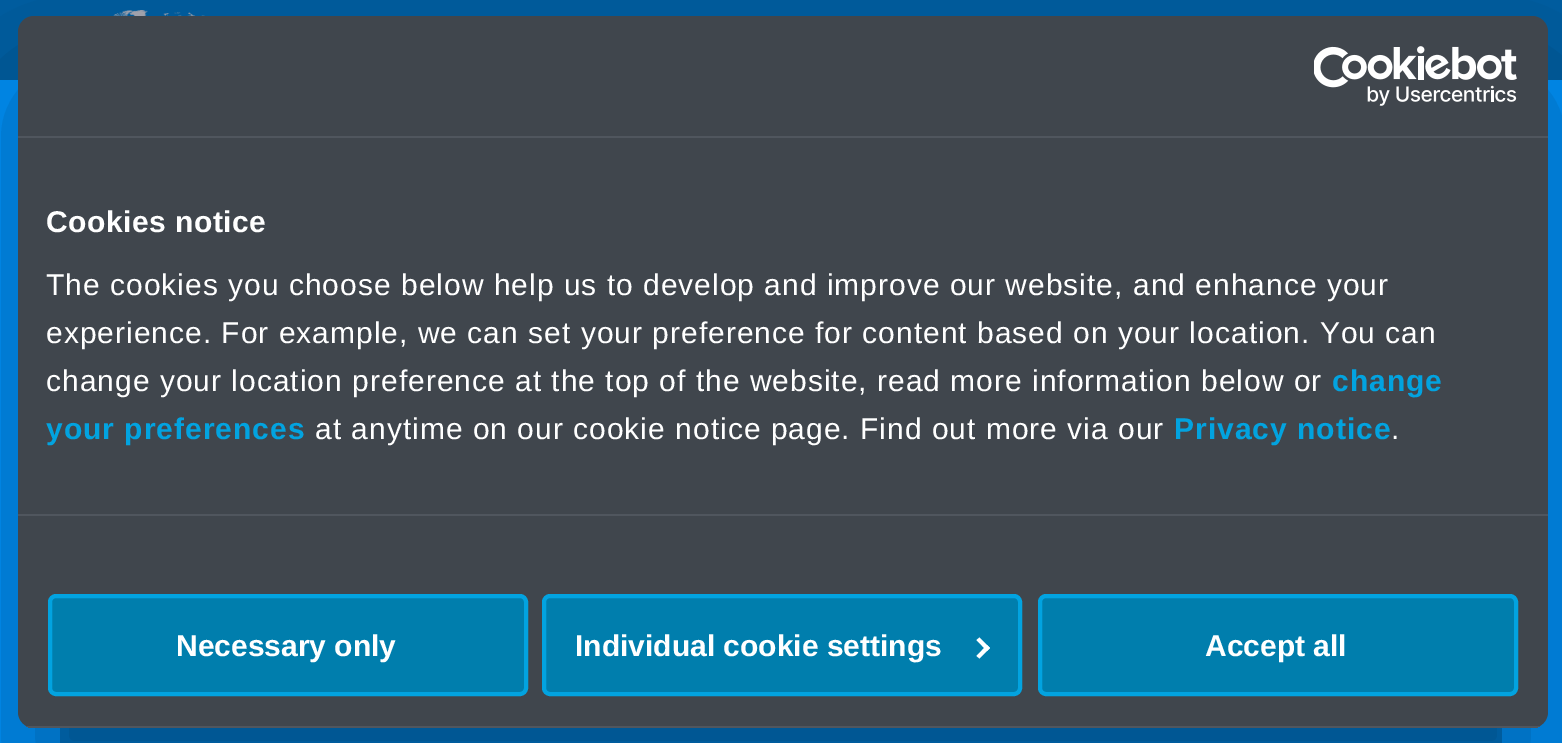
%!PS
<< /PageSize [1562 743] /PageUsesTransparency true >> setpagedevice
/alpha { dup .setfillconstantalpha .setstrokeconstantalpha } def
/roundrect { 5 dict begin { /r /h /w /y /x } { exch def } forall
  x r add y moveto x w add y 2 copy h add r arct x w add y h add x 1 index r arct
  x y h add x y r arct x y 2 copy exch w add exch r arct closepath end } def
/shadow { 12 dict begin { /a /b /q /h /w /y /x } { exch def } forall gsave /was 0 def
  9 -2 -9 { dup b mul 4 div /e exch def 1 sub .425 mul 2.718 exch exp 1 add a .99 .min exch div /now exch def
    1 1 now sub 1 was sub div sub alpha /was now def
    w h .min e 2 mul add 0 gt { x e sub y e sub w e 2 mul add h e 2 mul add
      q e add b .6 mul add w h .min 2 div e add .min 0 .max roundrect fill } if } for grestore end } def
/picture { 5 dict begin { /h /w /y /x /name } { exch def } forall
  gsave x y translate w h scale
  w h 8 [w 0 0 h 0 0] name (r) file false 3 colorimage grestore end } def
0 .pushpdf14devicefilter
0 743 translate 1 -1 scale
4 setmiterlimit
0 0.569 0.973 setrgbcolor
0 0 1562 743 rectfill
0 0.369 0.631 setrgbcolor
0 0 1562 80 rectfill
(img1.rgb) 113 10 92 6 picture
0 0.455 0.78 setrgbcolor
60 728 1442 15 rectfill
0 setgray
18 80 1530 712 16 68 0.3 shadow
0.251 0.275 0.302 setrgbcolor
18 16 1530 712 16 roundrect fill
0.314 0.337 0.369 setrgbcolor
18 136 1530 2 rectfill
(img2.rgb) 1314 46 203 60 picture
18 514 1530 2 rectfill
/LiberationSans-Bold [30 0 0 -30 0 0] selectfont
1 setgray
46 232 moveto 0.5 0 (Cookies notice) ashow
/LiberationSans-Regular [30 0 0 -30 0 0] selectfont
46 295 moveto 1 0 (The cookies you choose below help us to develop and improve our website, and enhance your) ashow
46 343 moveto 1 0 (experience. For example, we can set your preference for content based on your location. You can) ashow
46 391 moveto 1 0 (change your location preference at the top of the website, read more information below or) ashow
/LiberationSans-Bold [30 0 0 -30 0 0] selectfont
0.008 0.639 0.878 setrgbcolor
1332 391 moveto 1 0 (change) ashow
46 439 moveto 1 0 (your preferences) ashow
/LiberationSans-Regular [30 0 0 -30 0 0] selectfont
1 setgray
315 439 moveto 1 0 (at anytime on our cookie notice page. Find out more via our) ashow
/LiberationSans-Bold [30 0 0 -30 0 0] selectfont
0.008 0.639 0.878 setrgbcolor
1174 439 moveto 1 0 (Privacy notice) ashow
/LiberationSans-Regular [30 0 0 -30 0 0] selectfont
1 setgray
1391 439 moveto 1 0 (.) ashow
gsave
18 16 1530 712 16 roundrect clip newpath
0.314 0.337 0.369 setrgbcolor
18 726 1530 2 rectfill
grestore
0 0.494 0.678 setrgbcolor
50 596 476 98 6 roundrect gsave fill grestore
0.008 0.639 0.878 setrgbcolor
4 setlinewidth
stroke
/LiberationSans-Bold [30 0 0 -30 0 0] selectfont
1 setgray
176 656 moveto (Necessary only) show
0 0.494 0.678 setrgbcolor
544 596 476 98 6 roundrect gsave fill grestore
0.008 0.639 0.878 setrgbcolor
stroke
1 setgray
575 656 moveto (Individual cookie settings) show
newpath 979.5 637.5 moveto 990 648 lineto 987 651 lineto 976.5 640 lineto closepath fill
newpath 987 645 moveto 990 648 lineto 979.5 658.5 lineto 976.5 656 lineto closepath fill
0 0.494 0.678 setrgbcolor
1040 596 476 98 6 roundrect gsave fill grestore
0.008 0.639 0.878 setrgbcolor
stroke
1 setgray
1205 656 moveto (Accept all) show
.poppdf14devicefilter showpage
